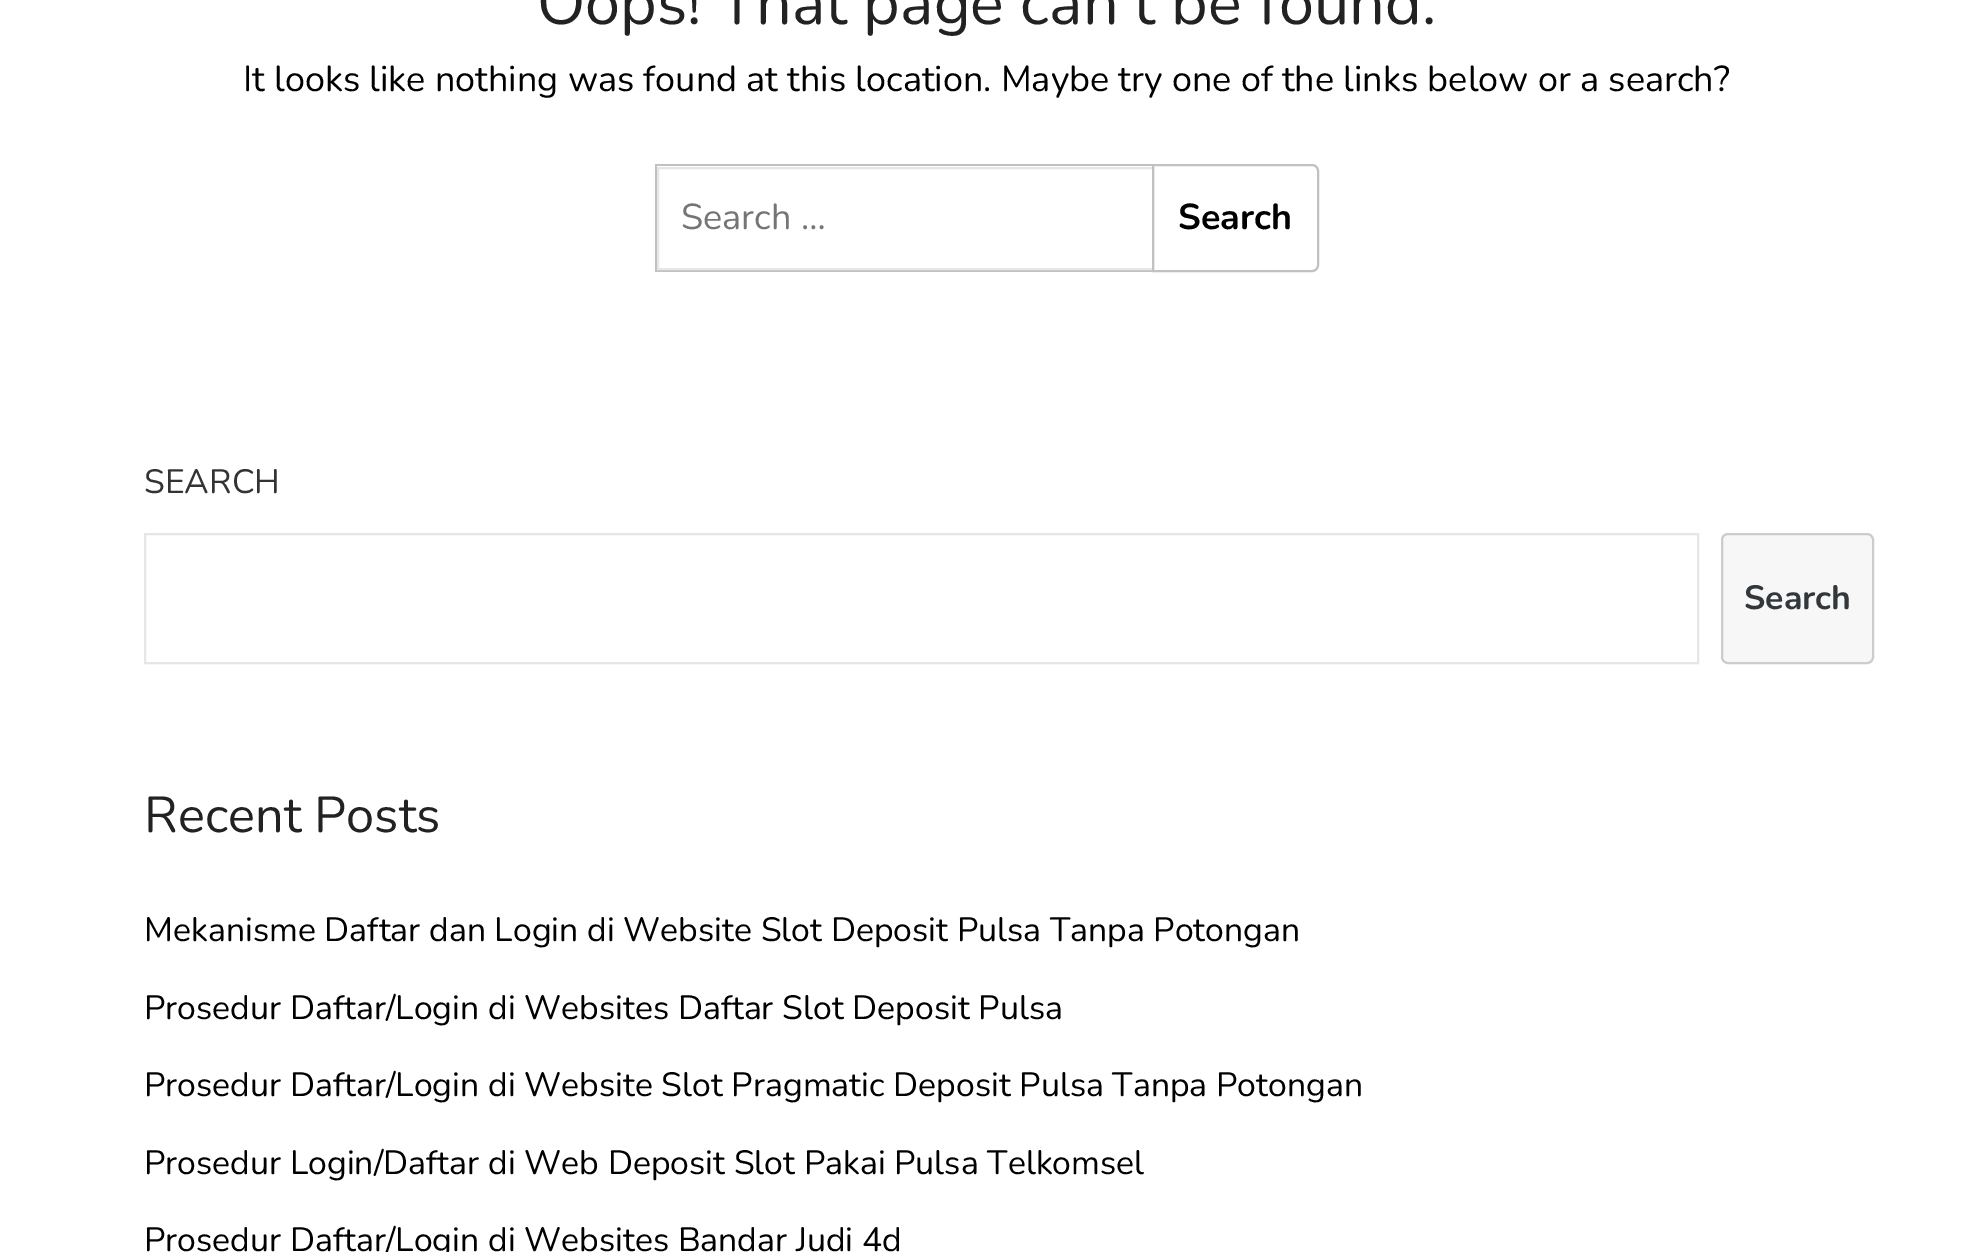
%!PS
<< /PageSize [1972 1252] >> setpagedevice
/roundrect { 5 dict begin { /r /h /w /y /x } { exch def } forall
  x r add y moveto x w add y 2 copy h add r arct x w add y h add x 1 index r arct
  x y h add x y r arct x y 2 copy exch w add exch r arct closepath end } def
0 1252 translate 1 -1 scale
4 setmiterlimit
1 setgray
0 0 1972 1252 rectfill
/Nunito-Regular [63 0 0 -63 0 0] selectfont
0.133 setgray
537 24 moveto (Oops! That page can’t be found.) show
/Nunito-Regular [36 0 0 -36 0 0] selectfont
0 setgray
243 91 moveto (It looks like nothing was found at this location. Maybe try one of the links below or a search?) show
0.757 setgray
655 164 499 2 rectfill
655 270 499 2 rectfill
655 164 2 108 rectfill
0.898 0.902 0.914 setrgbcolor
2 setlinewidth
658 168 495 101 rectstroke
0.459 setgray
681 229 moveto (Search …) show
0.757 setgray
newpath 1153 165 moveto 1312 165 lineto 1315.5 165 1318 167.5 1318 171 curveto 1318 265 lineto 1318 268.5 1315.5 271 1312 271 curveto 1153 271 lineto closepath stroke
/Nunito-Bold [36 0 0 -36 0 0] selectfont
0 setgray
1178 229 moveto (Search) show
/Nunito-Regular [33.75 0 0 -33.75 0 0] selectfont
0.2 setgray
144 493 moveto (SEARCH) show
0.898 0.902 0.914 setrgbcolor
145 534 1553 129 rectstroke
0.969 setgray
1722 534 151 129 6 roundrect gsave fill grestore
0.8 setgray
stroke
/Nunito-Bold [33.75 0 0 -33.75 0 0] selectfont
0.196 0.216 0.235 setrgbcolor
1744 609 moveto (Search) show
/Nunito-Regular [50.5 0 0 -50.5 0 0] selectfont
0.133 setgray
144 832 moveto (Recent Posts) show
/Nunito-Regular [33.75 0 0 -33.75 0 0] selectfont
0 setgray
144 941 moveto (Mekanisme Daftar dan Login di Website Slot Deposit Pulsa Tanpa Potongan) show
144 1019 moveto (Prosedur Daftar/Login di Websites Daftar Slot Deposit Pulsa) show
144 1096 moveto (Prosedur Daftar/Login di Website Slot Pragmatic Deposit Pulsa Tanpa Potongan) show
144 1174 moveto (Prosedur Login/Daftar di Web Deposit Slot Pakai Pulsa Telkomsel) show
144 1251 moveto (Prosedur Daftar/Login di Websites Bandar Judi 4d) show
showpage
